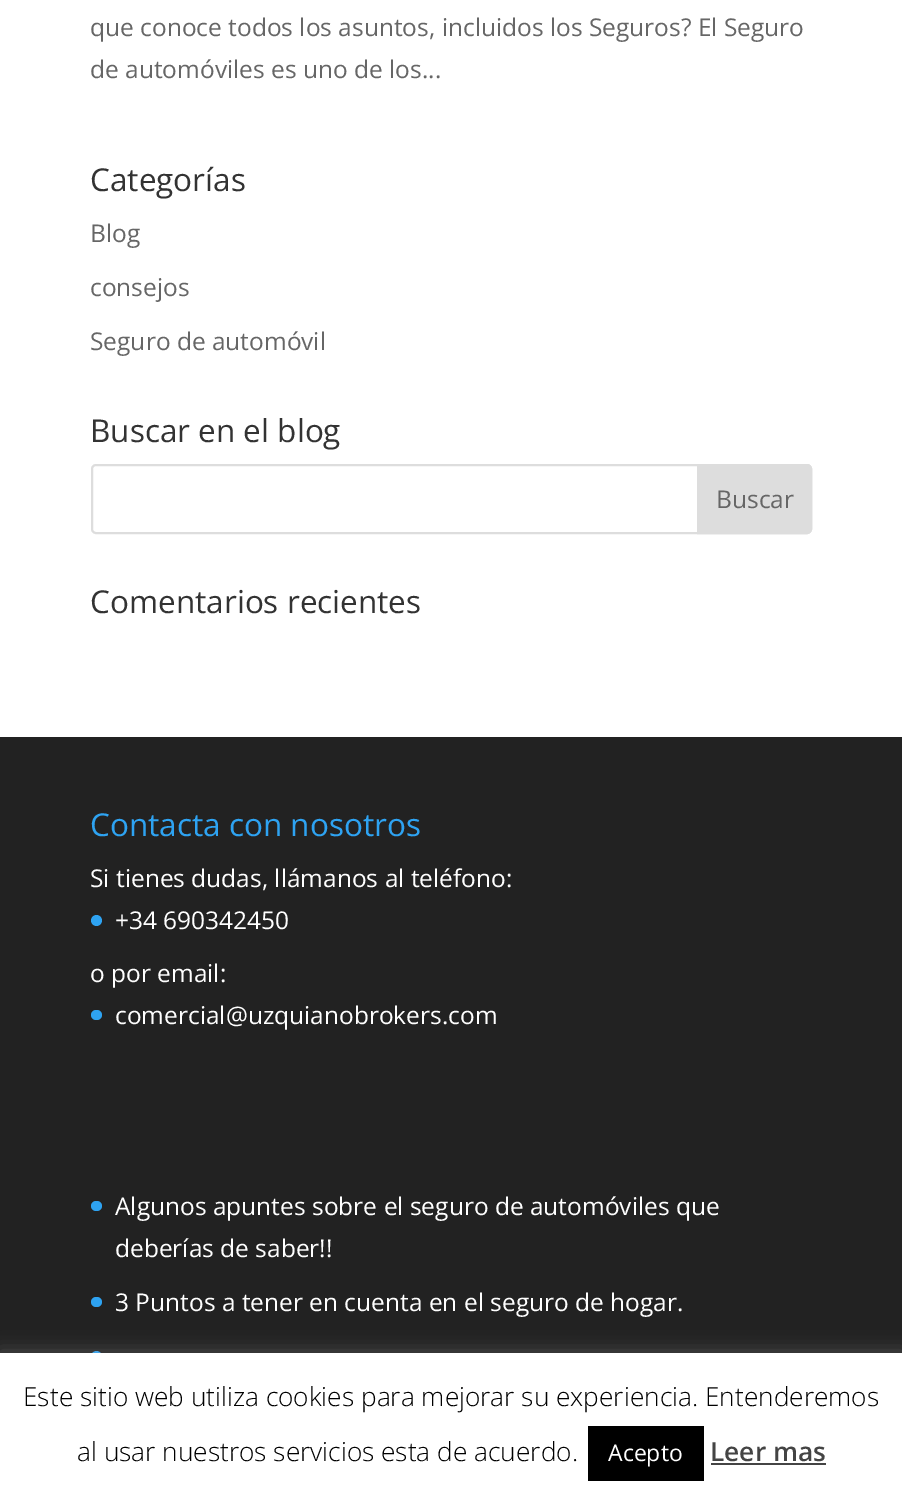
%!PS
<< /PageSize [902 1501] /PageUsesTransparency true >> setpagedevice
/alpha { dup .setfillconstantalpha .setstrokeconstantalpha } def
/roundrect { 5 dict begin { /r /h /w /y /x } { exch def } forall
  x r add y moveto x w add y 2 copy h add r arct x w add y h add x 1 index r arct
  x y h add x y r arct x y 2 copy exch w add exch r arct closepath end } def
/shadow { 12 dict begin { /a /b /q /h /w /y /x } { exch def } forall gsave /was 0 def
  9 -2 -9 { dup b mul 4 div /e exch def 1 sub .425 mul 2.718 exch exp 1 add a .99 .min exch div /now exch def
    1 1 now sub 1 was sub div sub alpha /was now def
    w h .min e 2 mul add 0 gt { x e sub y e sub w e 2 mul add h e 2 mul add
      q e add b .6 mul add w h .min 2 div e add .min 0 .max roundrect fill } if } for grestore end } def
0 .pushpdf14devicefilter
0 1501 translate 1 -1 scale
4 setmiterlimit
1 setgray
0 0 902 1501 rectfill
/OpenSans-Regular [24.5 0 0 -24.5 0 0] selectfont
0.4 setgray
90 36 moveto (que conoce todos los asuntos, incluidos los Seguros? El Seguro) show
90 78 moveto (de automóviles es uno de los...) show
/OpenSans-Regular [31.5 0 0 -31.5 0 0] selectfont
0.2 setgray
90 191 moveto (Categorías) show
/OpenSans-Regular [24.5 0 0 -24.5 0 0] selectfont
0.4 setgray
90 242 moveto (Blog) show
90 296 moveto (consejos) show
90 350 moveto (Seguro de automóvil) show
/OpenSans-Regular [31.5 0 0 -31.5 0 0] selectfont
0.2 setgray
90 442 moveto (Buscar en el blog) show
0.867 setgray
2 setlinewidth
92 465 719 68 4 roundrect stroke
newpath 698 465 moveto 807 465 lineto 809 465 811 467 811 469 curveto 811 529 lineto 811 531 809 533 807 533 curveto 698 533 lineto closepath gsave fill grestore
stroke
/OpenSans-Regular [24.5 0 0 -24.5 0 0] selectfont
0.4 setgray
716 508 moveto (Buscar) show
/OpenSans-Regular [31.5 0 0 -31.5 0 0] selectfont
0.2 setgray
90 613 moveto (Comentarios recientes) show
0.133 setgray
0 737 902 616 rectfill
0.18 0.639 0.949 setrgbcolor
90 836 moveto (Contacta con nosotros) show
/OpenSans-Regular [24.5 0 0 -24.5 0 0] selectfont
1 setgray
90 887 moveto (Si tienes dudas, llámanos al teléfono:) show
0.18 0.639 0.949 setrgbcolor
newpath 96.5 920.5 5.5 0 360 arc closepath fill
1 setgray
115 929 moveto (+34 690342450) show
90 982 moveto (o por email:) show
0.18 0.639 0.949 setrgbcolor
91 1010 11 10 5 roundrect fill
1 setgray
115 1024 moveto (comercial@uzquianobrokers.com) show
0.18 0.639 0.949 setrgbcolor
91 1201 11 10 5 roundrect fill
1 setgray
115 1215 moveto (Algunos apuntes sobre el seguro de automóviles que) show
115 1257 moveto (deberías de saber!!) show
0.18 0.639 0.949 setrgbcolor
91 1297 11 10 5 roundrect fill
1 setgray
115 1311 moveto (3 Puntos a tener en cuenta en el seguro de hogar.) show
0.18 0.639 0.949 setrgbcolor
newpath 96.5 1356.5 5.5 0 360 arc closepath fill
0.675 0.671 0.671 setrgbcolor
0 1351 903 149 0 9 0.3 shadow
1 setgray
0 1353 902 148 rectfill
/OpenSans-Light [26.25 0 0 -26.25 0 0] selectfont
0 setgray
23 1406 moveto (Este sitio web utiliza cookies para mejorar su experiencia. Entenderemos) show
77 1461 moveto (al usar nuestros servicios esta de acuerdo.) show
588 1426 116 55 rectfill
/OpenSans-Regular [23 0 0 -23 0 0] selectfont
1 setgray
608 1461 moveto (Acepto) show
/OpenSans-SemiBold [26.25 0 0 -26.25 0 0] selectfont
0.267 setgray
710 1461 moveto (Leer mas) show
711 1463 115 2 rectfill
.poppdf14devicefilter showpage
